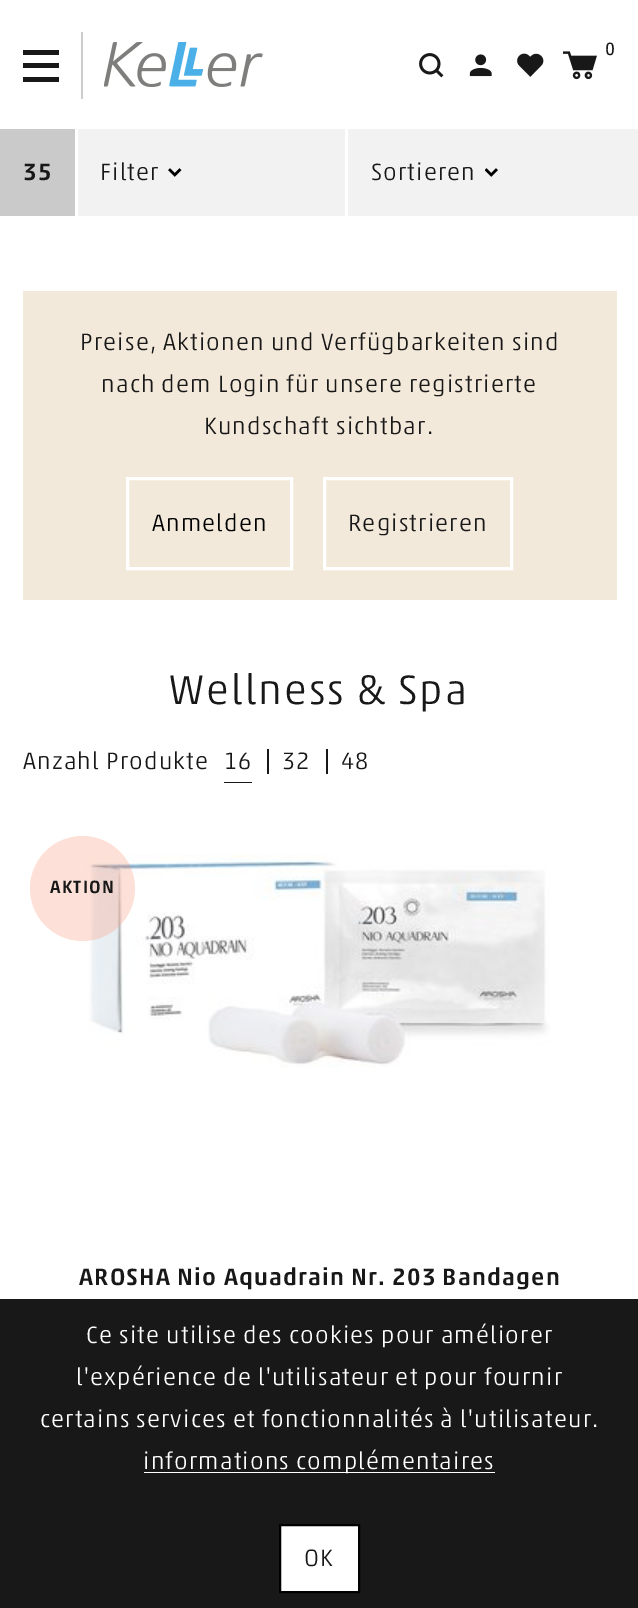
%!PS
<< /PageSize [638 1608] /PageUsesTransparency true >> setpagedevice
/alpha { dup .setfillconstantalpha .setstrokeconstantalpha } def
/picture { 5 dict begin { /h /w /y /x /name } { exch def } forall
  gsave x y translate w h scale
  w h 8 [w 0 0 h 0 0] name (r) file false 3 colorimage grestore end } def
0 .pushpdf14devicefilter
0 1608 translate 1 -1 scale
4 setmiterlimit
1 setgray
0 0 638 1608 rectfill
0.094 setgray
23 50 36 5 rectfill
23 63 36 5 rectfill
23 77 36 5 rectfill
0.8 setgray
81 32 2 67 rectfill
(img1.rgb) 104 42 159 45 picture
/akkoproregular-Regular [18 0 0 -18 0 0] selectfont
0.094 setgray
605 55 moveto 1.2 0 (0) ashow
(img2.rgb) 563 51 34 29 picture
(img3.rgb) 419 53 25 25 picture
(img4.rgb) 469 54 23 23 picture
(img5.rgb) 517 53 27 24 picture
0.949 setgray
78 129 560 87 rectfill
0.788 0.792 0.788 setrgbcolor
0 129 75 87 rectfill
/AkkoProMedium-Regular [24 0 0 -24 0 0] selectfont
0.094 setgray
23 180 moveto 1.2 0 (35) ashow
/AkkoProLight-Regular [24 0 0 -24 0 0] selectfont
100 180 moveto 1.2 0 (Filter) ashow
(img6.rgb) 168 168 14 9 picture
1 setgray
345 129 3 87 rectfill
0.094 setgray
371 180 moveto 1.2 0 (Sortieren) ashow
(img7.rgb) 485 168 13 9 picture
0.953 0.914 0.855 setrgbcolor
23 291 594 309 rectfill
0.094 setgray
80 350 moveto 1.2 0 (Preise, Aktionen und Verfügbarkeiten sind) ashow
101 392 moveto 1.2 0 (nach dem Login für unsere registrierte) ashow
204 434 moveto 1.2 0 (Kundschaft sichtbar.) ashow
1 setgray
3 setlinewidth
127.5 478.5 164 90 rectstroke
0 setgray
152 531 moveto 1.2 0 (Anmelden) ashow
1 setgray
324.5 478.5 187 90 rectstroke
0.094 setgray
348 531 moveto 1.2 0 (Registrieren) ashow
/AkkoProLight-Regular [42 0 0 -42 0 0] selectfont
169 704 moveto 2.1 0 (Wellness & Spa) ashow
/AkkoProLight-Regular [24 0 0 -24 0 0] selectfont
23 769 moveto 1.2 0 (Anzahl Produkte) ashow
224 782 28 1 rectfill
224 769 moveto 1.2 0 (16) ashow
267 749 2 25 rectfill
282 769 moveto 1.2 0 (32) ashow
326 749 2 25 rectfill
341 769 moveto 1.2 0 (48) ashow
(img8.rgb) 87 854 463 214 picture
0.3 alpha
0.98 0.608 0.494 setrgbcolor
newpath 82.5 888.5 52.5 0 360 arc closepath fill
/AkkoProMedium-Regular [18 0 0 -18 0 0] selectfont
1 alpha
0.094 setgray
50 893 moveto 1.2 0 (AKTION) ashow
/AkkoProMedium-Regular [24 0 0 -24 0 0] selectfont
79 1285 moveto 1.2 0 (AROSHA Nio Aquadrain Nr. 203 Bandagen) ashow
0 1299 638 309 rectfill
/AkkoProLight-Regular [24 0 0 -24 0 0] selectfont
1 setgray
86 1343 moveto 1.2 0 (Ce site utilise des cookies pour améliorer) ashow
76 1385 moveto 1.2 0 (l'expérience de l'utilisateur et pour fournir) ashow
40 1427 moveto 1.2 0 (certains services et fonctionnalités à l'utilisateur.) ashow
144 1472 351 1 rectfill
143 1469 moveto 1.2 0 (informations complémentaires) ashow
newpath 280 1525 moveto 359 1525 lineto 359 1592 lineto 280 1592 lineto closepath gsave fill grestore
0 setgray
2 setlinewidth
stroke
0.094 setgray
304 1566 moveto 1.2 0 (OK) ashow
.poppdf14devicefilter showpage
